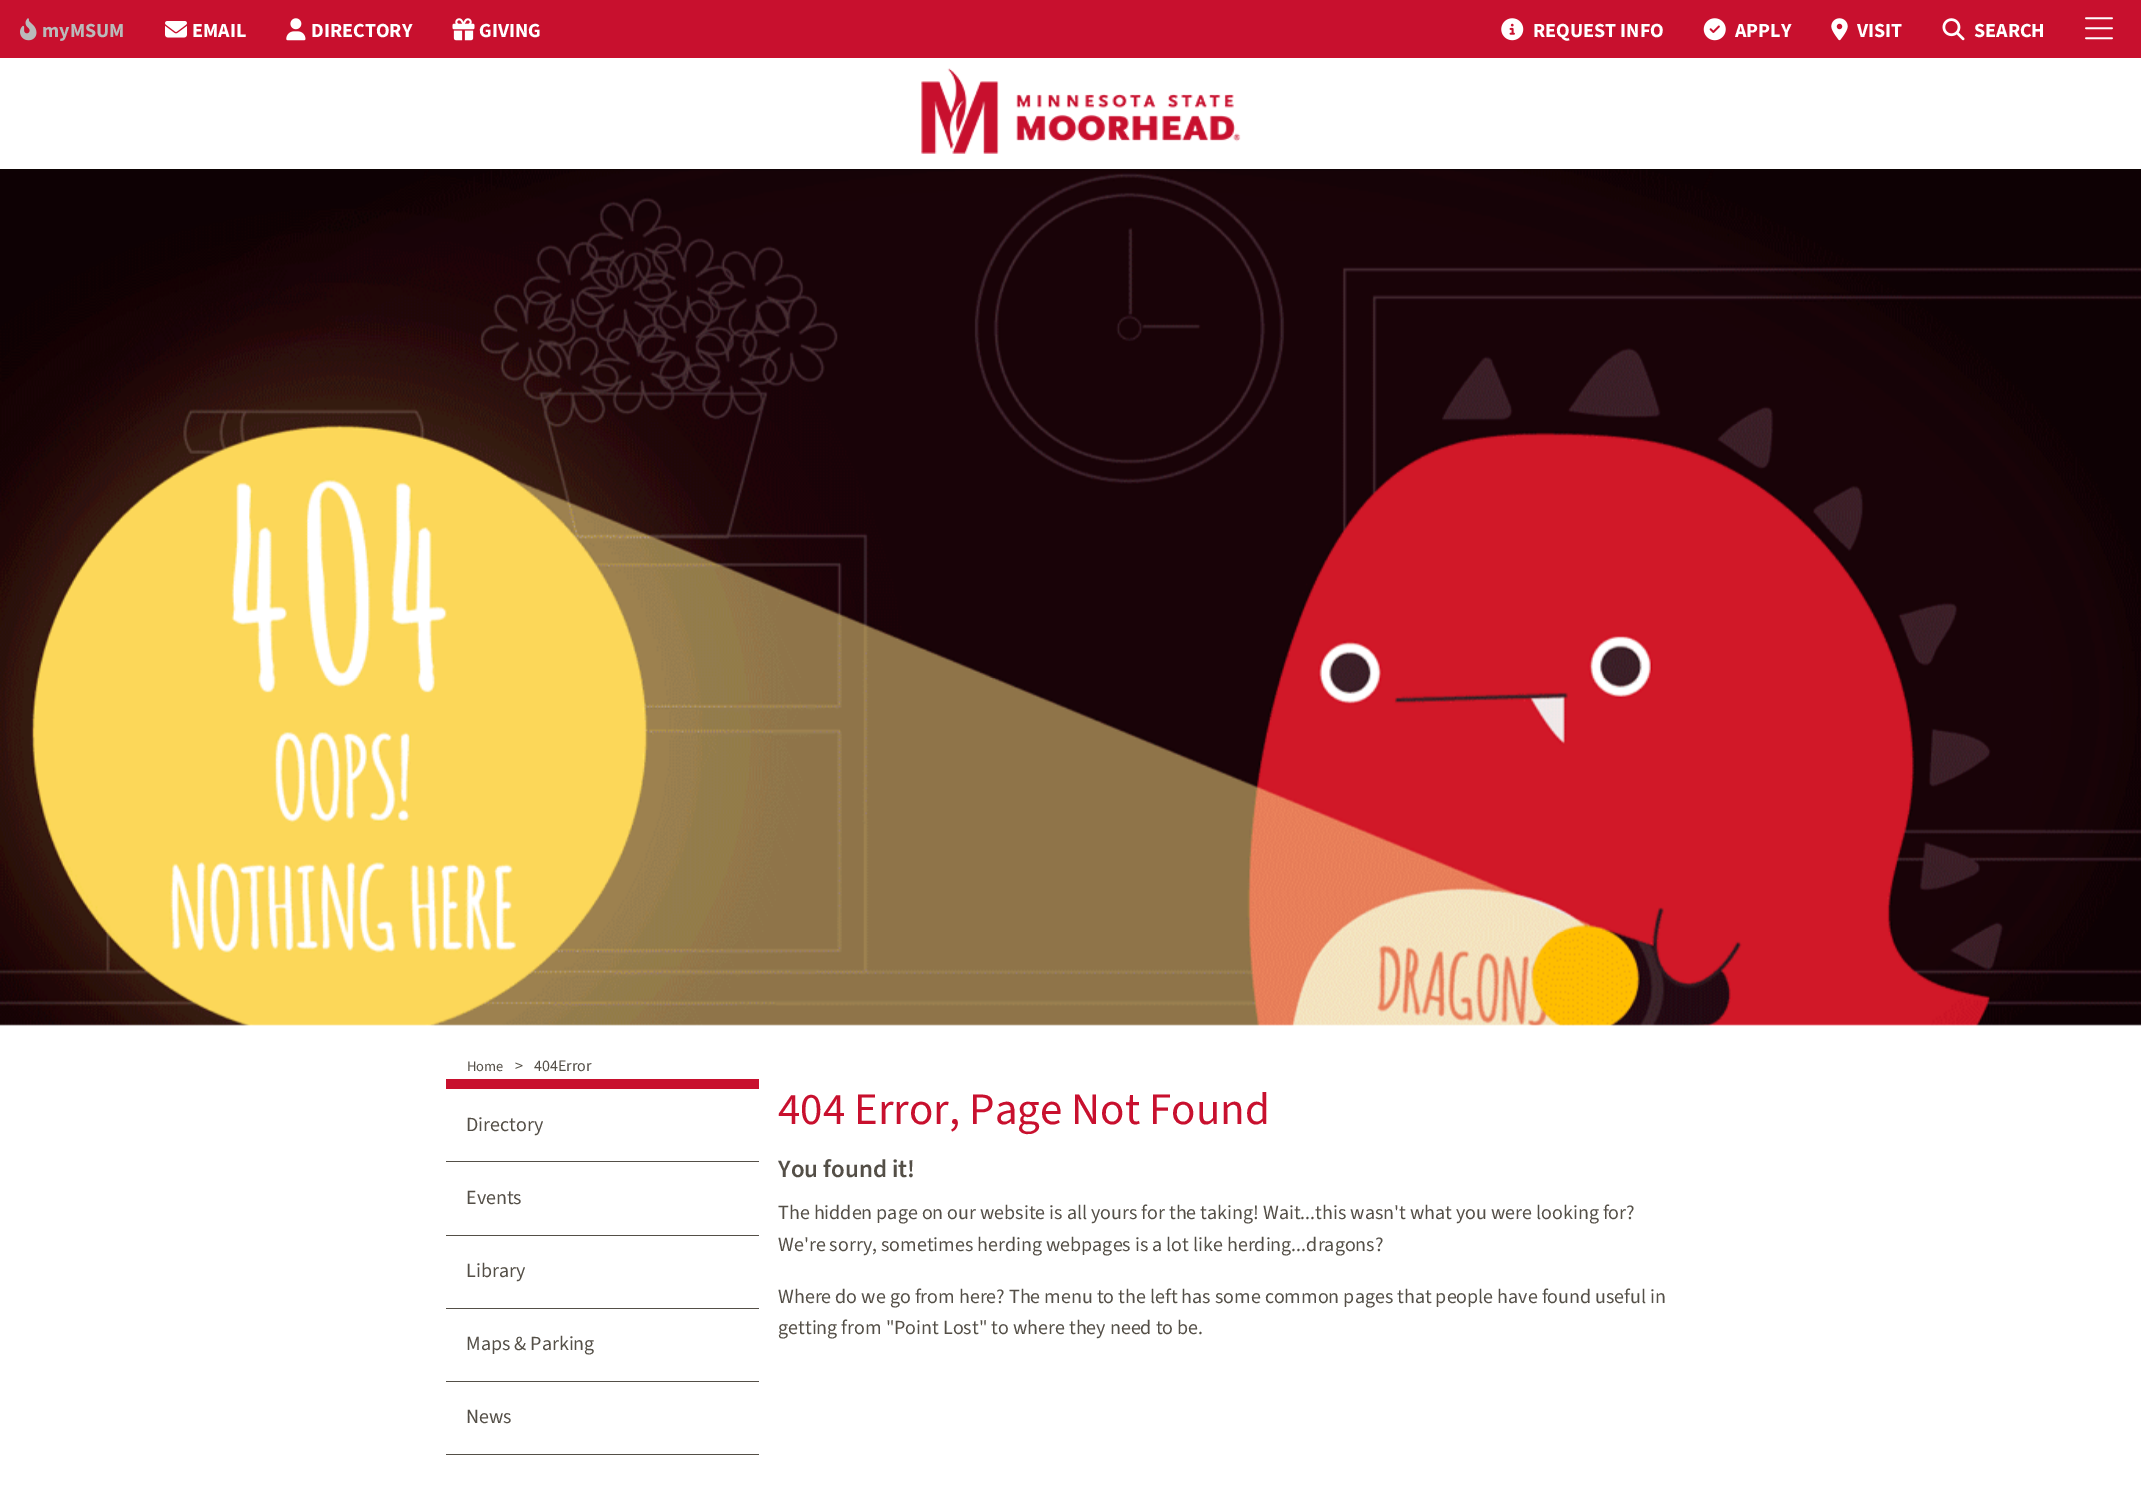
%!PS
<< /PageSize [2141 1487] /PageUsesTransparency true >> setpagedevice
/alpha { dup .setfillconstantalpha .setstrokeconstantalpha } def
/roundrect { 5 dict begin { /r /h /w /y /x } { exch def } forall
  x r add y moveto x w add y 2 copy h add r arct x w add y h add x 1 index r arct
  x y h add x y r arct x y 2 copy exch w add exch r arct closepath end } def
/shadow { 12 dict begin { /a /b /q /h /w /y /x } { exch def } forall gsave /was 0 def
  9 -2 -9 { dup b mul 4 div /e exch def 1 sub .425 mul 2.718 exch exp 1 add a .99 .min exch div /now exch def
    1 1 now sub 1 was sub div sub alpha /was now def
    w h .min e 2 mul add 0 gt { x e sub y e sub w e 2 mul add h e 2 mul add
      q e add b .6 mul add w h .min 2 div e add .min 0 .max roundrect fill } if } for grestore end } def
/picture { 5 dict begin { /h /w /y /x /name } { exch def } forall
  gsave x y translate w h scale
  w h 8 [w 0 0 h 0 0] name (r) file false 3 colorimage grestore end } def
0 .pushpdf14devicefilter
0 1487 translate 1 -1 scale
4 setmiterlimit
1 setgray
0 0 2141 1487 rectfill
(img11.rgb) 0 169 2141 857 picture
0.039 setgray
0 59 2141 111 0 1 0.5 shadow
0.784 0.063 0.18 setrgbcolor
0 0 2141 58 rectfill
(img1.rgb) 20 18 17 23 picture
/SourceSans3-Bold [20 0 0 -20 0 0] selectfont
0.729 setgray
42 37 moveto (myMSUM) show
(img2.rgb) 165 21 22 17 picture
1 setgray
192 37 moveto (EMAIL) show
(img3.rgb) 286 18 20 23 picture
311 37 moveto (DIRECTORY) show
(img4.rgb) 452 18 23 23 picture
479 37 moveto (GIVING) show
(img5.rgb) 1501 18 23 23 picture
1533 37 moveto (REQUEST INFO) show
(img6.rgb) 1703 18 23 23 picture
1735 37 moveto (APPLY) show
(img7.rgb) 1831 18 17 23 picture
1857 37 moveto (VISIT) show
(img8.rgb) 1942 18 23 23 picture
1974 37 moveto (SEARCH) show
(img9.rgb) 2085 17 28 23 picture
0 58 2141 111 rectfill
(img10.rgb) 921 68 320 86 picture
/SourceSans3-Regular [14.5 0 0 -14.5 0 0] selectfont
0.329 0.31 0.278 setrgbcolor
467 1071 moveto (Home) show
/SourceSans3-Regular [16 0 0 -16 0 0] selectfont
515 1071 moveto (>) show
534 1071 moveto (404Error) show
0.784 0.063 0.18 setrgbcolor
446 1079 313 10 rectfill
/SourceSans3-Regular [20 0 0 -20 0 0] selectfont
0.329 0.31 0.278 setrgbcolor
466 1131 moveto (Directory) show
446 1161 313 1 rectfill
466 1204 moveto (Events) show
446 1235 313 1 rectfill
466 1277 moveto (Library) show
446 1308 313 1 rectfill
466 1350 moveto (Maps & Parking) show
446 1381 313 1 rectfill
466 1423 moveto (News) show
446 1454 313 1 rectfill
/SourceSans3-Regular [45 0 0 -45 0 0] selectfont
0.784 0.063 0.18 setrgbcolor
778 1124 moveto (404 Error, Page Not Found) show
/SourceSans3-SemiBold [25 0 0 -25 0 0] selectfont
0.329 0.31 0.278 setrgbcolor
778 1177 moveto (You found it!) show
/SourceSans3-Regular [20 0 0 -20 0 0] selectfont
778 1219 moveto (The hidden page on our website is all yours for the taking! Wait...this wasn't what you were looking for?) show
778 1251 moveto (We're sorry, sometimes herding webpages is a lot like herding...dragons?) show
778 1303 moveto (Where do we go from here? The menu to the left has some common pages that people have found useful in) show
778 1334 moveto (getting from "Point Lost" to where they need to be.) show
.poppdf14devicefilter showpage
